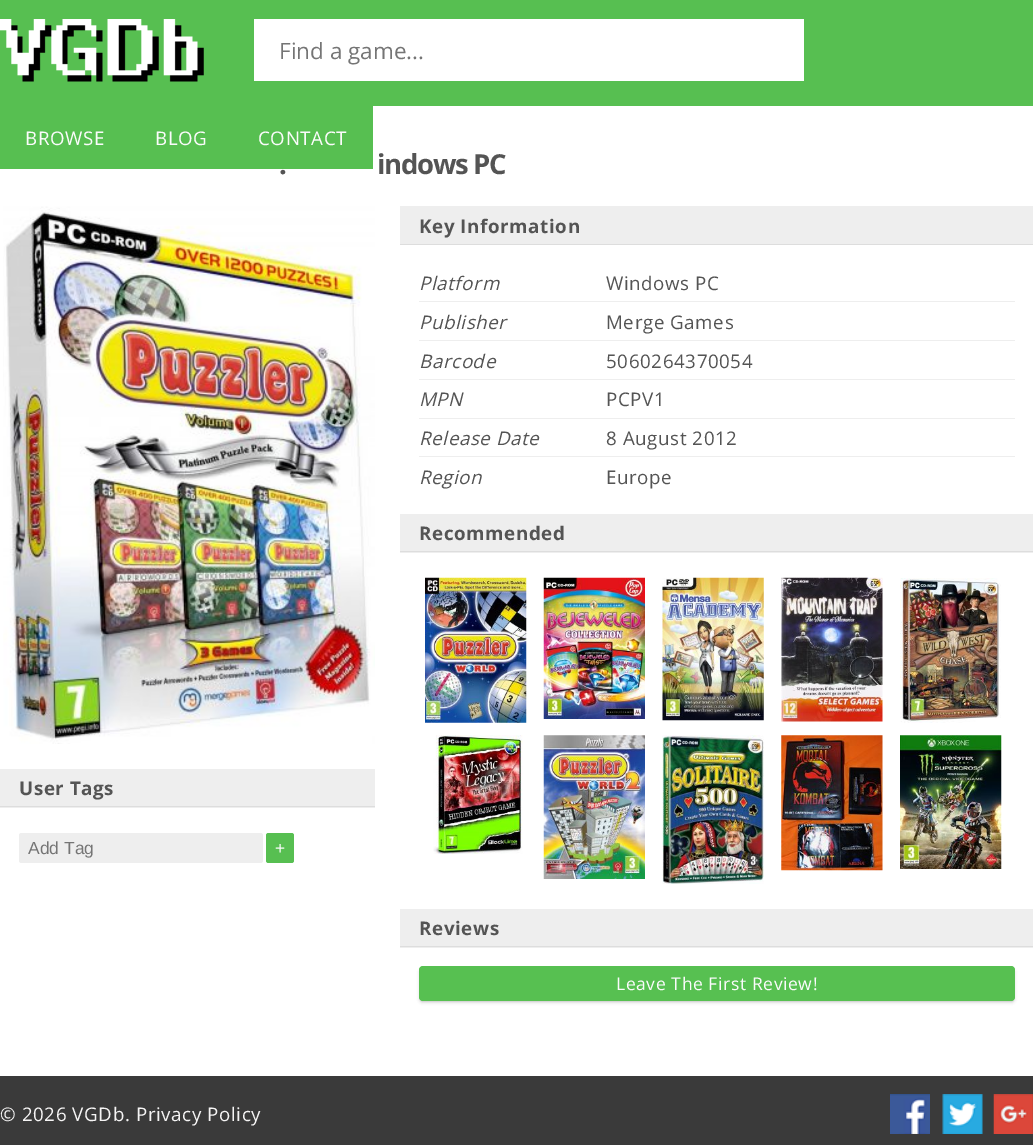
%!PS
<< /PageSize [1033 1145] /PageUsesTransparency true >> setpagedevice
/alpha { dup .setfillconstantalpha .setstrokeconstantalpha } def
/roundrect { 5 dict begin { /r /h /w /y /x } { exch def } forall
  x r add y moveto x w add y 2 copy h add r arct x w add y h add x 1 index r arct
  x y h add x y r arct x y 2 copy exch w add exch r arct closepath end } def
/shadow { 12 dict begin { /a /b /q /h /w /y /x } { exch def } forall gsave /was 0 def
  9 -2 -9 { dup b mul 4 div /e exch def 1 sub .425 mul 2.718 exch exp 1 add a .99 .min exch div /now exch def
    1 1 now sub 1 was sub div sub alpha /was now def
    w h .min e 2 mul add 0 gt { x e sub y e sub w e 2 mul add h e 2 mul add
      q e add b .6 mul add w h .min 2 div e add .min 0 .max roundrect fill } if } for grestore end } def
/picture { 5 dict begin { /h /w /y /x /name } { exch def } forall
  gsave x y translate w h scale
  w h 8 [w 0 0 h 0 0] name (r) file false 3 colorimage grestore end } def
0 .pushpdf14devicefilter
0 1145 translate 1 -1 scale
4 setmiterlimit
1 setgray
0 0 1033 1145 rectfill
0.341 0.749 0.318 setrgbcolor
0 0 1033 106 rectfill
(img1.rgb) 0 19 204 63 picture
1 setgray
254 19 550 62 rectfill
/OpenSans-Regular [22.5 0 0 -22.5 0 0] selectfont
0.459 setgray
279 59 moveto (Find a game...) show
0.341 0.749 0.318 setrgbcolor
0 106 373 63 rectfill
/OpenSans-Regular [18.75 0 0 -18.75 0 0] selectfont
0.984 setgray
25 145 moveto 0.6 0 (BROWSE) ashow
155 145 moveto 0.6 0 (BLOG) ashow
258 145 moveto 0.6 0 (CONTACT) ashow
/OpenSans-Bold [27.5 0 0 -27.5 0 0] selectfont
0.329 setgray
279 174 moveto -1.25 0 (.) ashow
377 174 moveto -1.25 0 (indows PC) ashow
(img2.rgb) 3 206 372 538 picture
0.933 setgray
0 769 375 39 rectfill
0.867 setgray
0 806 375 1 rectfill
/OpenSans-Bold [18.75 0 0 -18.75 0 0] selectfont
0.329 setgray
19 795 moveto 0.6 0 (User Tags) ashow
0.933 setgray
19 833 244 30 2.5 roundrect fill
/LiberationSans-Regular [17.5 0 0 -17.5 0 0] selectfont
0.459 setgray
28 854 moveto (Add Tag) show
0.341 0.749 0.318 setrgbcolor
266 833 28 30 2.5 roundrect fill
0.984 setgray
275 854 moveto (+) show
0.933 setgray
400 206 633 38 rectfill
0.867 setgray
400 244 633 1 rectfill
/OpenSans-Bold [18.75 0 0 -18.75 0 0] selectfont
0.329 setgray
419 233 moveto 0.6 0 (Key Information) ashow
0.933 setgray
419 301 596 1 rectfill
/OpenSans-Italic [18.75 0 0 -18.75 0 0] selectfont
0.329 setgray
419 290 moveto 0.6 0 (Platform) ashow
/OpenSans-Regular [18.75 0 0 -18.75 0 0] selectfont
606 290 moveto 0.6 0 (Windows PC) ashow
0.933 setgray
419 340 596 1 rectfill
/OpenSans-Italic [18.75 0 0 -18.75 0 0] selectfont
0.329 setgray
419 329 moveto 0.6 0 (Publisher) ashow
/OpenSans-Regular [18.75 0 0 -18.75 0 0] selectfont
606 329 moveto 0.6 0 (Merge Games) ashow
0.933 setgray
419 379 596 1 rectfill
/OpenSans-Italic [18.75 0 0 -18.75 0 0] selectfont
0.329 setgray
419 368 moveto 0.6 0 (Barcode) ashow
/OpenSans-Regular [18.75 0 0 -18.75 0 0] selectfont
606 368 moveto 0.6 0 (5060264370054) ashow
0.933 setgray
419 418 596 1 rectfill
/OpenSans-Italic [18.75 0 0 -18.75 0 0] selectfont
0.329 setgray
419 406 moveto 0.6 0 (MPN) ashow
/OpenSans-Regular [18.75 0 0 -18.75 0 0] selectfont
606 406 moveto 0.6 0 (PCPV1) ashow
0.933 setgray
419 456 596 1 rectfill
/OpenSans-Italic [18.75 0 0 -18.75 0 0] selectfont
0.329 setgray
419 445 moveto 0.6 0 (Release Date) ashow
/OpenSans-Regular [18.75 0 0 -18.75 0 0] selectfont
606 445 moveto 0.6 0 (8 August 2012) ashow
/OpenSans-Italic [18.75 0 0 -18.75 0 0] selectfont
419 484 moveto 0.6 0 (Region) ashow
/OpenSans-Regular [18.75 0 0 -18.75 0 0] selectfont
606 484 moveto 0.6 0 (Europe) ashow
0.933 setgray
400 514 633 39 rectfill
0.867 setgray
400 551 633 1 rectfill
/OpenSans-Bold [18.75 0 0 -18.75 0 0] selectfont
0.329 setgray
419 540 moveto 0.6 0 (Recommended) ashow
(img3.rgb) 425 577 102 146 picture
(img4.rgb) 543 577 102 142 picture
(img5.rgb) 662 577 102 144 picture
(img6.rgb) 781 577 102 145 picture
(img7.rgb) 900 578 101 145 picture
(img8.rgb) 433 735 90 119 picture
(img9.rgb) 543 735 102 144 picture
(img10.rgb) 662 735 102 149 picture
(img11.rgb) 781 735 102 136 picture
(img12.rgb) 900 735 102 134 picture
0.933 setgray
400 909 633 39 rectfill
0.867 setgray
400 946 633 1 rectfill
0.329 setgray
419 935 moveto 0.6 0 (Reviews) ashow
0.6 setgray
421 971 592 30 1 2 1 shadow
0.341 0.753 0.318 setrgbcolor
419 966 596 35 4 roundrect fill
/OpenSans-Regular [17.5 0 0 -17.5 0 0] selectfont
0.984 setgray
616 990 moveto 0.6 0 (Leave The First Review!) ashow
0.227 setgray
0 1076 1033 69 rectfill
/OpenSans-Regular [18.75 0 0 -18.75 0 0] selectfont
0.961 0.957 0.957 setrgbcolor
0 1121 moveto 0.6 0 (© 2026 VGDb. Privacy Policy) ashow
(img13.rgb) 890 1094 40 40 picture
(img14.rgb) 942 1094 41 40 picture
(img15.rgb) 993 1094 40 40 picture
.poppdf14devicefilter showpage
